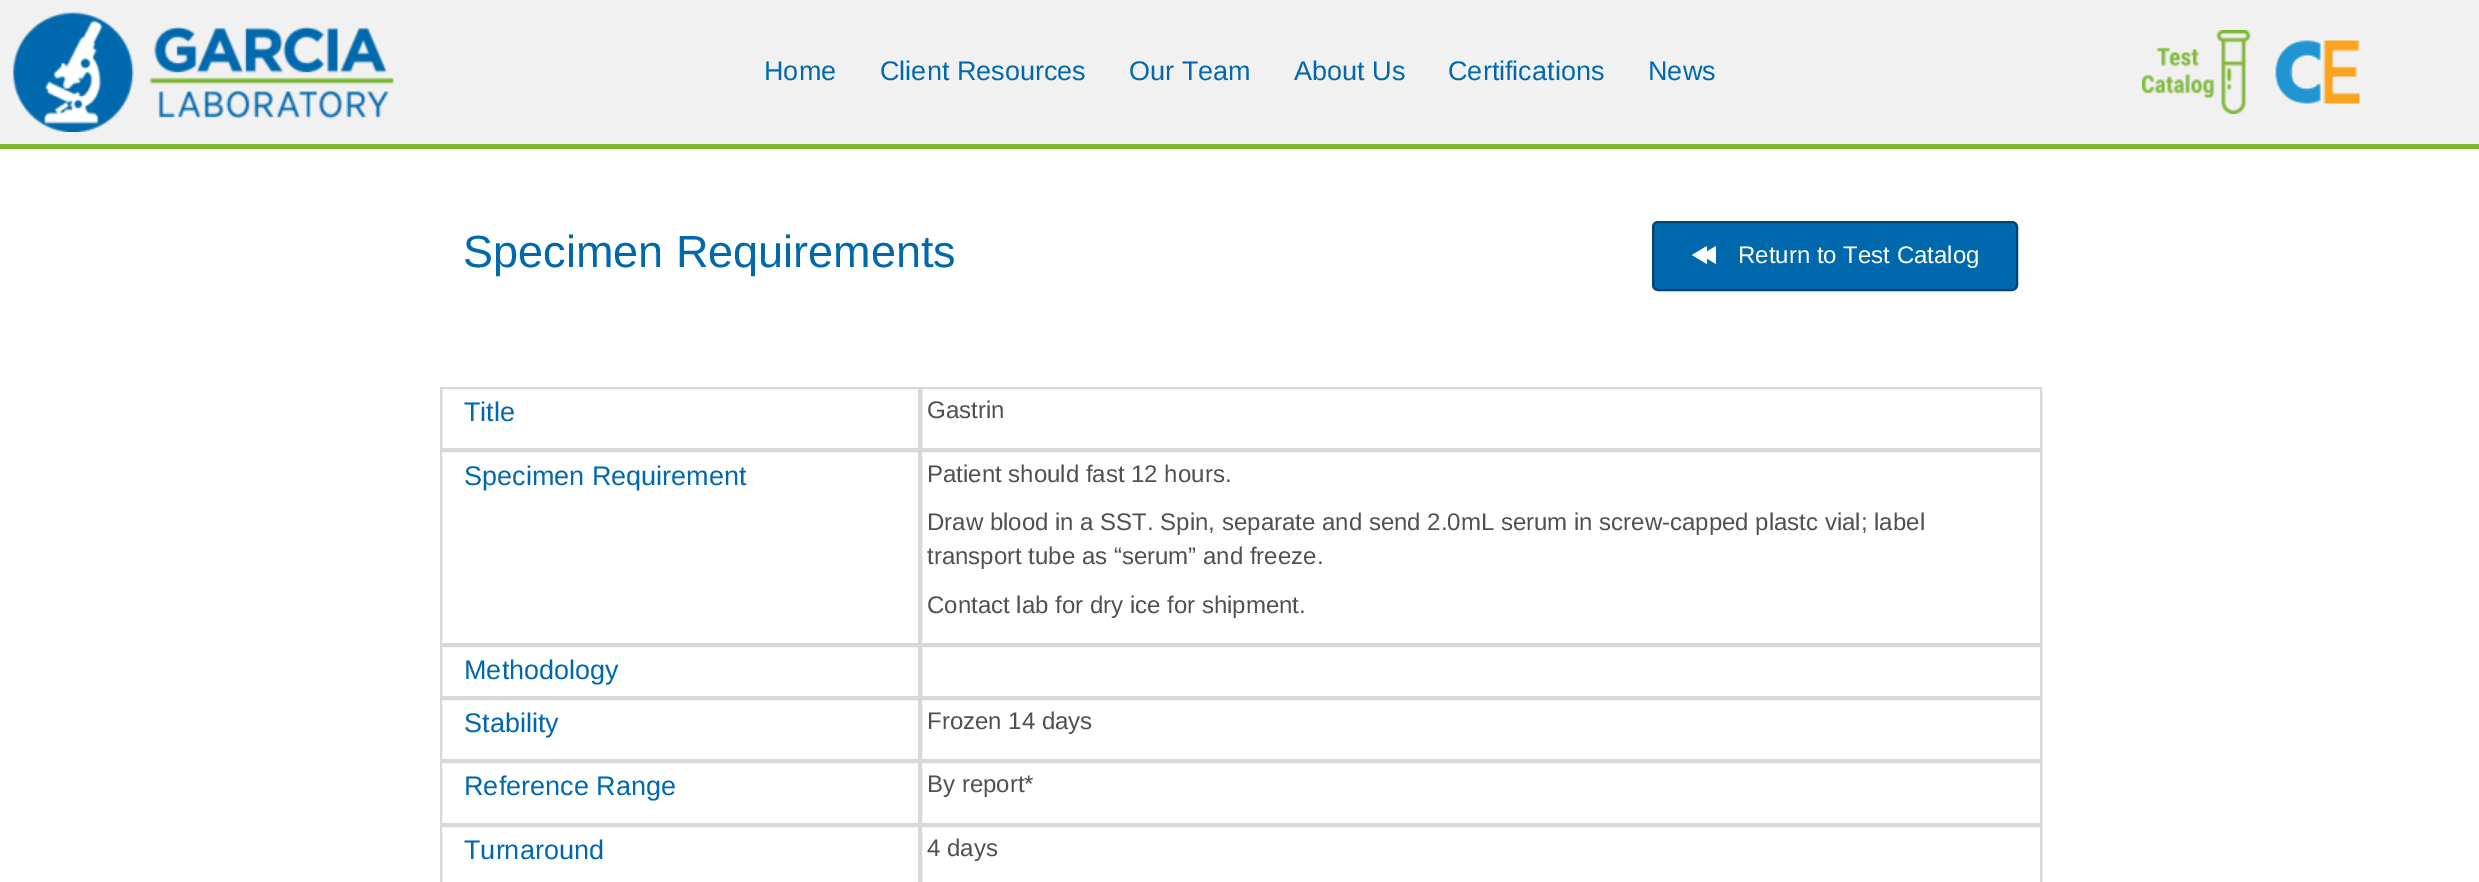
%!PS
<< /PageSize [2479 882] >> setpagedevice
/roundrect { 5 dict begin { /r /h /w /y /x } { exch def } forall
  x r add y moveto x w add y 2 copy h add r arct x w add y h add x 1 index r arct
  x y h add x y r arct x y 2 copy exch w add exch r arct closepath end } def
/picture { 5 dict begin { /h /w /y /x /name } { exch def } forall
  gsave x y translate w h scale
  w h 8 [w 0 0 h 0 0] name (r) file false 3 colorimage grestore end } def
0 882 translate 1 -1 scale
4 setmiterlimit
0.945 setgray
0 0 2479 882 rectfill
0.478 0.714 0.196 setrgbcolor
0 144 2479 5 rectfill
(img1.rgb) 12 12 383 120 picture
/LiberationSans-Regular [27 0 0 -27 0 0] selectfont
0 0.412 0.678 setrgbcolor
764 80 moveto (Home) show
880 80 moveto (Client Resources) show
1129 80 moveto (Our Team) show
1294 80 moveto (About Us) show
1448 80 moveto (Certifications) show
1648 80 moveto (News) show
(img2.rgb) 2142 30 109 84 picture
(img3.rgb) 2275 40 85 64 picture
1 setgray
0 149 2479 733 rectfill
/LiberationSans-Regular [45 0 0 -45 0 0] selectfont
0 0.412 0.678 setrgbcolor
463 267 moveto (Specimen Requirements) show
1653 222 364 68 5 roundrect gsave fill grestore
0 0.267 0.439 setrgbcolor
2 setlinewidth
stroke
1 setgray
newpath 1692 255 moveto 1707 246 lineto 1707 251.5 lineto 1716 246 lineto 1716 264 lineto 1707 258.5 lineto 1707 264 lineto closepath fill
/LiberationSans-Regular [24 0 0 -24 0 0] selectfont
1738 263 moveto (Return to Test Catalog) show
0.847 setgray
441 388 478 61 rectstroke
/LiberationSans-Regular [27 0 0 -27 0 0] selectfont
0 0.412 0.678 setrgbcolor
464 421 moveto (Title) show
0.847 setgray
921 388 1120 61 rectstroke
/LiberationSans-Regular [24 0 0 -24 0 0] selectfont
0.314 setgray
927 418 moveto (Gastrin) show
0.847 setgray
441 451 478 193 rectstroke
/LiberationSans-Regular [27 0 0 -27 0 0] selectfont
0 0.412 0.678 setrgbcolor
464 485 moveto (Specimen Requirement) show
0.847 setgray
921 451 1120 193 rectstroke
/LiberationSans-Regular [24 0 0 -24 0 0] selectfont
0.314 setgray
927 482 moveto (Patient should fast 12 hours.) show
927 530 moveto (Draw blood in a SST. Spin, separate and send 2.0mL serum in screw-capped plastc vial; label) show
927 564 moveto (transport tube as “serum” and freeze.) show
927 613 moveto (Contact lab for dry ice for shipment.) show
0.847 setgray
441 646 478 51 rectstroke
/LiberationSans-Regular [27 0 0 -27 0 0] selectfont
0 0.412 0.678 setrgbcolor
464 679 moveto (Methodology) show
0.847 setgray
921 646 1120 51 rectstroke
441 699 478 61 rectstroke
0 0.412 0.678 setrgbcolor
464 732 moveto (Stability) show
0.847 setgray
921 699 1120 61 rectstroke
/LiberationSans-Regular [24 0 0 -24 0 0] selectfont
0.314 setgray
927 729 moveto (Frozen 14 days) show
0.847 setgray
441 762 478 62 rectstroke
/LiberationSans-Regular [27 0 0 -27 0 0] selectfont
0 0.412 0.678 setrgbcolor
464 795 moveto (Reference Range) show
0.847 setgray
921 762 1120 62 rectstroke
/LiberationSans-Regular [24 0 0 -24 0 0] selectfont
0.314 setgray
927 792 moveto (By report*) show
0.847 setgray
441 826 478 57 rectstroke
/LiberationSans-Regular [27 0 0 -27 0 0] selectfont
0 0.412 0.678 setrgbcolor
464 859 moveto (Turnaround) show
0.847 setgray
921 826 1120 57 rectstroke
/LiberationSans-Regular [24 0 0 -24 0 0] selectfont
0.314 setgray
927 856 moveto (4 days) show
showpage
